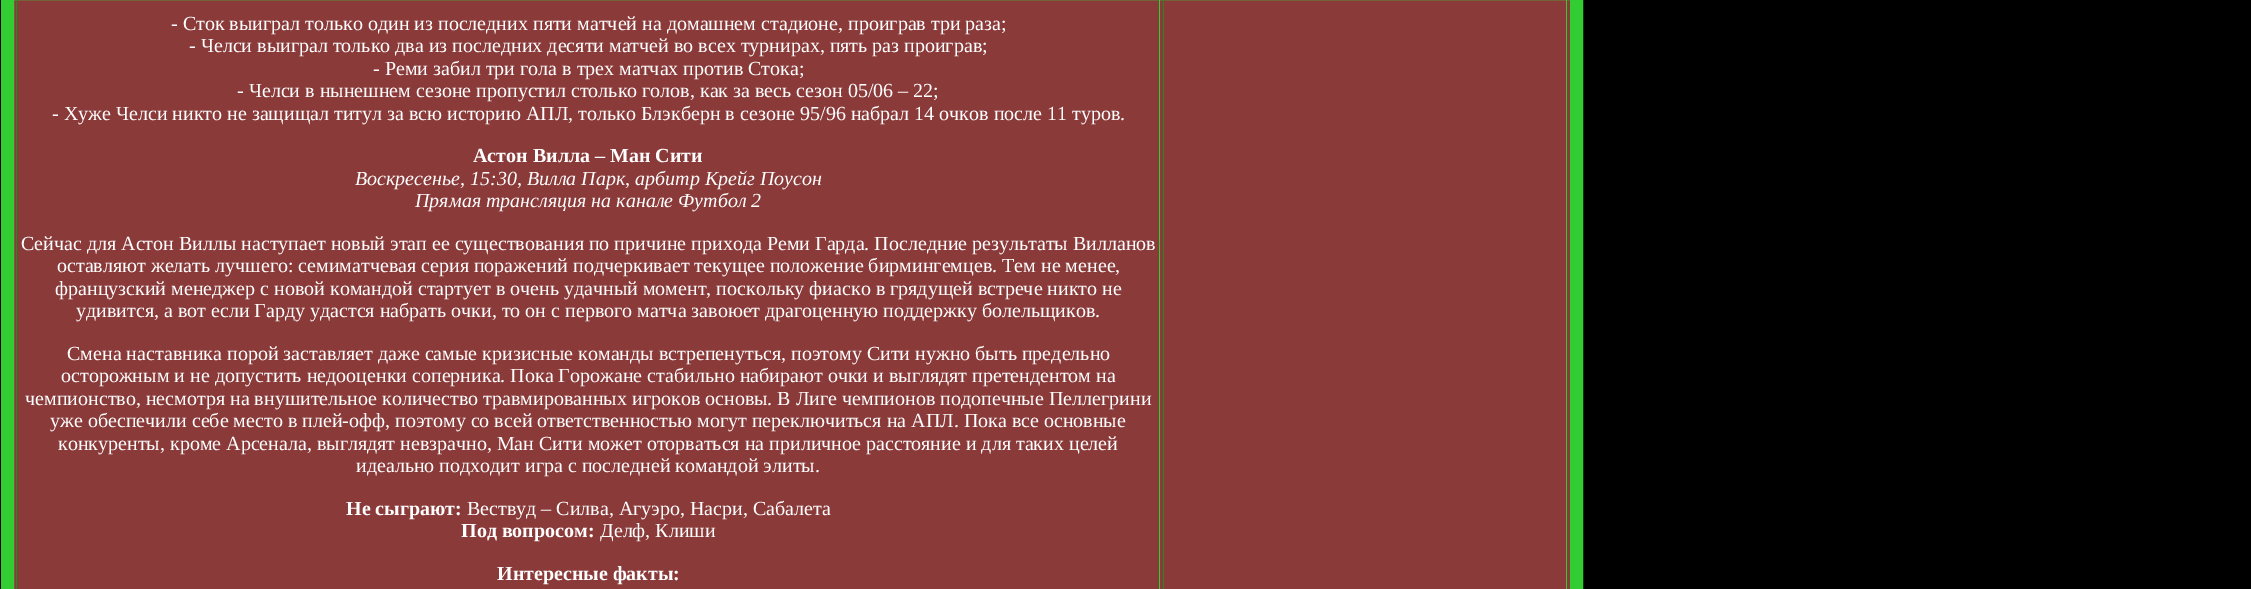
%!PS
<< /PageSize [2251 589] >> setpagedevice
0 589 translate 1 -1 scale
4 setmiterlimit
0 setgray
0 0 2251 589 rectfill
0.545 0.227 0.227 setrgbcolor
newpath 7.5 -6.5 moveto 1576.5 -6.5 lineto 1576.5 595.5 lineto 7.5 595.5 lineto closepath gsave fill grestore
0.196 0.804 0.196 setrgbcolor
13 setlinewidth
stroke
1159 0 1 589 rectfill
0.129 0.537 0.129 setrgbcolor
16 0 1 589 rectfill
/LiberationSerif-Regular [20 0 0 -20 0 0] selectfont
1 setgray
171 30 moveto (- Сток выиграл только один из последних пяти матчей на домашнем стадионе, проиграв три раза;) show
189 52 moveto (- Челси выиграл только два из последних десяти матчей во всех турнирах, пять раз проиграв;) show
373 75 moveto (- Реми забил три гола в трех матчах против Стока;) show
237 97 moveto (- Челси в нынешнем сезоне пропустил столько голов, как за весь сезон 05/06 – 22;) show
52 120 moveto (- Хуже Челси никто не защищал титул за всю историю АПЛ, только Блэкберн в сезоне 95/96 набрал 14 очков после 11 туров.) show
/LiberationSerif-Bold [20 0 0 -20 0 0] selectfont
473 162 moveto (Астон Вилла – Ман Сити) show
/LiberationSerif-Italic [20 0 0 -20 0 0] selectfont
355 185 moveto (Воскресенье, 15:30, Вилла Парк, арбитр Крейг Поусон) show
415 207 moveto (Прямая трансляция на канале Футбол 2) show
/LiberationSerif-Regular [20 0 0 -20 0 0] selectfont
21 250 moveto (Сейчас для Астон Виллы наступает новый этап ее существования по причине прихода Реми Гарда. Последние результаты Вилланов) show
57 272 moveto (оставляют желать лучшего: семиматчевая серия поражений подчеркивает текущее положение бирмингемцев. Тем не менее,) show
55 295 moveto (французский менеджер с новой командой стартует в очень удачный момент, поскольку фиаско в грядущей встрече никто не) show
76 317 moveto (удивится, а вот если Гарду удастся набрать очки, то он с первого матча завоюет драгоценную поддержку болельщиков.) show
67 360 moveto (Смена наставника порой заставляет даже самые кризисные команды встрепенуться, поэтому Сити нужно быть предельно) show
61 382 moveto (осторожным и не допустить недооценки соперника. Пока Горожане стабильно набирают очки и выглядят претендентом на) show
25 405 moveto (чемпионство, несмотря на внушительное количество травмированных игроков основы. В Лиге чемпионов подопечные Пеллегрини) show
50 427 moveto (уже обеспечили себе место в плей-офф, поэтому со всей ответственностью могут переключиться на АПЛ. Пока все основные) show
58 450 moveto (конкуренты, кроме Арсенала, выглядят невзрачно, Ман Сити может оторваться на приличное расстояние и для таких целей) show
356 472 moveto (идеально подходит игра с последней командой элиты.) show
/LiberationSerif-Bold [20 0 0 -20 0 0] selectfont
346 515 moveto (Не сыграют:) show
/LiberationSerif-Regular [20 0 0 -20 0 0] selectfont
467 515 moveto (Вествуд – Силва, Агуэро, Насри, Сабалета) show
/LiberationSerif-Bold [20 0 0 -20 0 0] selectfont
461 537 moveto (Под вопросом:) show
/LiberationSerif-Regular [20 0 0 -20 0 0] selectfont
600 537 moveto (Делф, Клиши) show
/LiberationSerif-Bold [20 0 0 -20 0 0] selectfont
497 580 moveto (Интересные факты:) show
0.196 0.804 0.196 setrgbcolor
1566 0 1 589 rectfill
0.129 0.537 0.129 setrgbcolor
1163 0 1 589 rectfill
showpage
